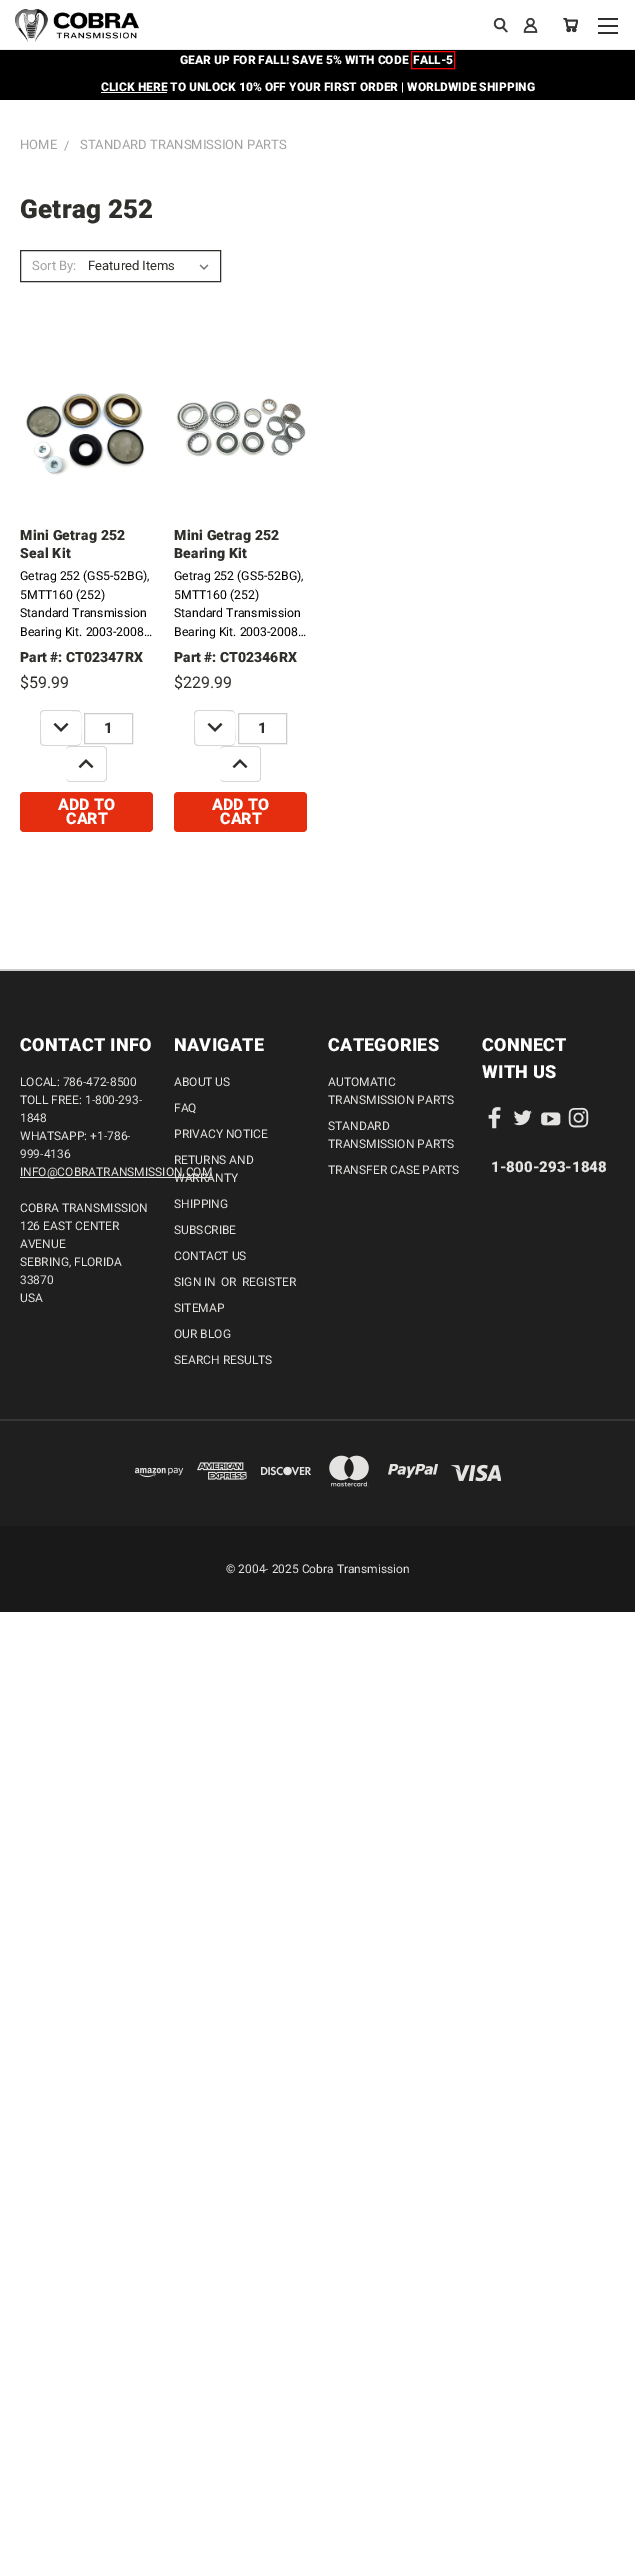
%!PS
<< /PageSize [635 2563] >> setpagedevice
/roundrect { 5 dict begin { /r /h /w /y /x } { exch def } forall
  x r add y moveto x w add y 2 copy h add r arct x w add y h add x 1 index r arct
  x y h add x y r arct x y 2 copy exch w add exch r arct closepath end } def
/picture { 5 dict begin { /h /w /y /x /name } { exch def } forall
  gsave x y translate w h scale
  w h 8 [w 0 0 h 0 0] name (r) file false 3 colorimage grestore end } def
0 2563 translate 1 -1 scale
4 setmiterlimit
1 setgray
0 0 635 2563 rectfill
0.922 setgray
0 49 635 1 rectfill
(img1.rgb) 15 9 124 33 picture
(img2.rgb) 493 18 15 15 picture
(img3.rgb) 523 18 15 15 picture
(img4.rgb) 563 18 15 15 picture
0.184 0.184 0.169 setrgbcolor
598 25 20 2 rectfill
598 18 20 2 rectfill
598 32 20 2 rectfill
0 setgray
0 50 635 50 rectfill
/Roboto-Black [12 0 0 -12 0 0] selectfont
1 setgray
180 64 moveto (GEAR UP FOR FALL! SAVE 5% WITH CODE) show
1 0 0 setrgbcolor
411.5 51.5 43 17 rectstroke
1 setgray
413 64 moveto (FALL-5) show
101 92 66 1 rectfill
101 91 moveto (CLICK HERE TO UNLOCK 10% OFF YOUR FIRST ORDER | WORLDWIDE SHIPPING) show
/Roboto-Regular [13 0 0 -13 0 0] selectfont
0.635 setgray
20 149 moveto (HOME) show
64 150 moveto (/) show
80 149 moveto (STANDARD TRANSMISSION PARTS) show
/Roboto-Black [26 0 0 -26 0 0] selectfont
0.184 0.184 0.169 setrgbcolor
20 218 moveto 0.25 0 (Getrag 252) ashow
20.5 250.5 200 31 rectstroke
/Roboto-Regular [13 0 0 -13 0 0] selectfont
0.635 setgray
32 270 moveto (Sort By:) show
(img5.rgb) 199 264 10 6 picture
0.184 0.184 0.169 setrgbcolor
88 270 moveto (Featured Items) show
(img6.rgb) 26 393 119 83 picture
/Roboto-Black [14 0 0 -14 0 0] selectfont
20 540 moveto 0.25 0 (Mini Getrag 252) ashow
20 558 moveto 0.25 0 (Seal Kit) ashow
/Roboto-Regular [12.25 0 0 -12.25 0 0] selectfont
0 setgray
20 580 moveto (Getrag 252 \(GS5-52BG\),) show
20 599 moveto (5MTT160 \(252\)) show
20 617 moveto (Standard Transmission) show
20 636 moveto (Bearing Kit. 2003-2008…) show
/Roboto-Black [14 0 0 -14 0 0] selectfont
0.184 0.184 0.169 setrgbcolor
20 662 moveto (Part #: CT02347RX) show
/Roboto-Regular [16 0 0 -16 0 0] selectfont
20 688 moveto ($59.99) show
0.843 setgray
newpath 44 710 moveto 77 710 lineto 79 710 81 712 81 714 curveto 81 742 lineto 81 744 79 746 77 746 curveto 44 746 lineto 42 746 40 744 40 742 curveto 40 714 lineto 40 712 42 710 44 710 curveto closepath 44 711 moveto 72 711 lineto 83 711 81 712 81 723 curveto 81 749 86 745 60 745 curveto 50 745 lineto 41 745 41 746 41 737 curveto 41 723 lineto 41 721 39 711 44 711 curveto closepath eofill
(img7.rgb) 53 722 16 10 picture
0.8 setgray
84.5 713.5 48 30 rectstroke
/Roboto-Black [15 0 0 -15 0 0] selectfont
0.184 0.184 0.169 setrgbcolor
104 733 moveto (1) show
0.843 setgray
newpath 70 746 moveto 103 746 lineto 105 746 107 748 107 750 curveto 107 778 lineto 107 780 105 782 103 782 curveto 70 782 lineto 68 782 66 780 66 778 curveto 66 750 lineto 66 748 68 746 70 746 curveto closepath 70 747 moveto 103 747 lineto 105 747 106 748 106 750 curveto 106 778 lineto 106 780 105 781 103 781 curveto 70 781 lineto 68 781 66 780 66 778 curveto 66 750 lineto 66 748 68 747 70 747 curveto closepath eofill
(img8.rgb) 78 759 16 10 picture
0.898 0.18 0.063 setrgbcolor
20 792 133 40 4 roundrect fill
/Roboto-Black [16 0 0 -16 0 0] selectfont
1 setgray
58 810 moveto (ADD TO) show
66 824 moveto (CART) show
(img9.rgb) 176 398 130 59 picture
/Roboto-Black [14 0 0 -14 0 0] selectfont
0.184 0.184 0.169 setrgbcolor
174 540 moveto 0.25 0 (Mini Getrag 252) ashow
174 558 moveto 0.25 0 (Bearing Kit) ashow
/Roboto-Regular [12.25 0 0 -12.25 0 0] selectfont
0 setgray
174 580 moveto (Getrag 252 \(GS5-52BG\),) show
174 599 moveto (5MTT160 \(252\)) show
174 617 moveto (Standard Transmission) show
174 636 moveto (Bearing Kit. 2003-2008…) show
/Roboto-Black [14 0 0 -14 0 0] selectfont
0.184 0.184 0.169 setrgbcolor
174 662 moveto (Part #: CT02346RX) show
/Roboto-Regular [16 0 0 -16 0 0] selectfont
174 688 moveto ($229.99) show
0.843 setgray
newpath 198 710 moveto 231 710 lineto 233 710 235 712 235 714 curveto 235 742 lineto 235 744 233 746 231 746 curveto 198 746 lineto 196 746 194 744 194 742 curveto 194 714 lineto 194 712 196 710 198 710 curveto closepath 198 711 moveto 226 711 lineto 237 711 235 712 235 723 curveto 235 749 240 745 214 745 curveto 204 745 lineto 195 745 195 746 195 737 curveto 195 723 lineto 195 721 193 711 198 711 curveto closepath eofill
(img7.rgb) 207 722 16 10 picture
0.8 setgray
238.5 713.5 48 30 rectstroke
/Roboto-Black [15 0 0 -15 0 0] selectfont
0.184 0.184 0.169 setrgbcolor
258 733 moveto (1) show
0.843 setgray
newpath 224 746 moveto 257 746 lineto 259 746 261 748 261 750 curveto 261 778 lineto 261 780 259 782 257 782 curveto 224 782 lineto 222 782 220 780 220 778 curveto 220 750 lineto 220 748 222 746 224 746 curveto closepath 224 747 moveto 257 747 lineto 259 747 260 748 260 750 curveto 260 778 lineto 260 780 259 781 257 781 curveto 224 781 lineto 222 781 220 780 220 778 curveto 220 750 lineto 220 748 222 747 224 747 curveto closepath eofill
(img8.rgb) 232 759 16 10 picture
0.898 0.18 0.063 setrgbcolor
174 792 133 40 4 roundrect fill
/Roboto-Black [16 0 0 -16 0 0] selectfont
1 setgray
212 810 moveto (ADD TO) show
220 824 moveto (CART) show
0.122 setgray
0 971 635 555 rectfill
0.804 0.8 0.8 setrgbcolor
0 969 635 2 rectfill
/Roboto-Black [18 0 0 -18 0 0] selectfont
1 setgray
20 1051 moveto 0.25 0 (CONTACT INFO) ashow
/Roboto-Regular [12 0 0 -12 0 0] selectfont
0.894 0.89 0.882 setrgbcolor
20 1086 moveto (LOCAL: 786-472-8500) show
20 1104 moveto (TOLL FREE: 1-800-293-) show
20 1122 moveto (1848) show
20 1140 moveto (WHATSAPP: +1-786-) show
20 1158 moveto (999-4136) show
20 1177 192 1 rectfill
20 1176 moveto (INFO@COBRATRANSMISSION.COM) show
20 1212 moveto (COBRA TRANSMISSION) show
20 1230 moveto (126 EAST CENTER) show
20 1248 moveto (AVENUE) show
20 1266 moveto (SEBRING, FLORIDA) show
20 1284 moveto (33870) show
20 1302 moveto (USA) show
/Roboto-Black [18 0 0 -18 0 0] selectfont
1 setgray
174 1051 moveto 0.25 0 (NAVIGATE) ashow
/Roboto-Regular [12 0 0 -12 0 0] selectfont
0.894 0.89 0.882 setrgbcolor
174 1086 moveto (ABOUT US) show
174 1112 moveto (FAQ) show
174 1138 moveto (PRIVACY NOTICE) show
174 1164 moveto (RETURNS AND) show
174 1182 moveto (WARRANTY) show
174 1208 moveto (SHIPPING) show
174 1234 moveto (SUBSCRIBE) show
174 1260 moveto (CONTACT US) show
174 1286 moveto (SIGN IN) show
221 1286 moveto (OR) show
242 1286 moveto (REGISTER) show
174 1312 moveto (SITEMAP) show
174 1338 moveto (OUR BLOG) show
174 1364 moveto (SEARCH RESULTS) show
/Roboto-Black [18 0 0 -18 0 0] selectfont
1 setgray
328 1051 moveto 0.25 0 (CATEGORIES) ashow
/Roboto-Regular [12 0 0 -12 0 0] selectfont
0.894 0.89 0.882 setrgbcolor
328 1086 moveto (AUTOMATIC) show
328 1104 moveto (TRANSMISSION PARTS) show
328 1130 moveto (STANDARD) show
328 1148 moveto (TRANSMISSION PARTS) show
328 1174 moveto (TRANSFER CASE PARTS) show
/Roboto-Black [18 0 0 -18 0 0] selectfont
1 setgray
482 1051 moveto 0.25 0 (CONNECT) ashow
482 1078 moveto 0.25 0 (WITH US) ashow
(img10.rgb) 488 1107 13 22 picture
(img11.rgb) 513 1110 19 16 picture
(img12.rgb) 541 1112 20 14 picture
(img13.rgb) 568 1107 21 21 picture
/Roboto-Black [15 0 0 -15 0 0] selectfont
0.894 0.89 0.882 setrgbcolor
491 1172 moveto (1-800-293-1848) show
0.212 setgray
0 1419 635 2 rectfill
(img14.rgb) 134 1467 50 11 picture
(img15.rgb) 197 1462 50 18 picture
(img16.rgb) 261 1466 50 10 picture
(img17.rgb) 329 1455 40 32 picture
(img18.rgb) 388 1464 50 14 picture
(img19.rgb) 451 1464 50 18 picture
0.098 setgray
0 1526 635 86 rectfill
/Roboto-Regular [12 0 0 -12 0 0] selectfont
0.894 0.89 0.882 setrgbcolor
226 1573 moveto (© 2004- 2025 Cobra Transmission) show
showpage
